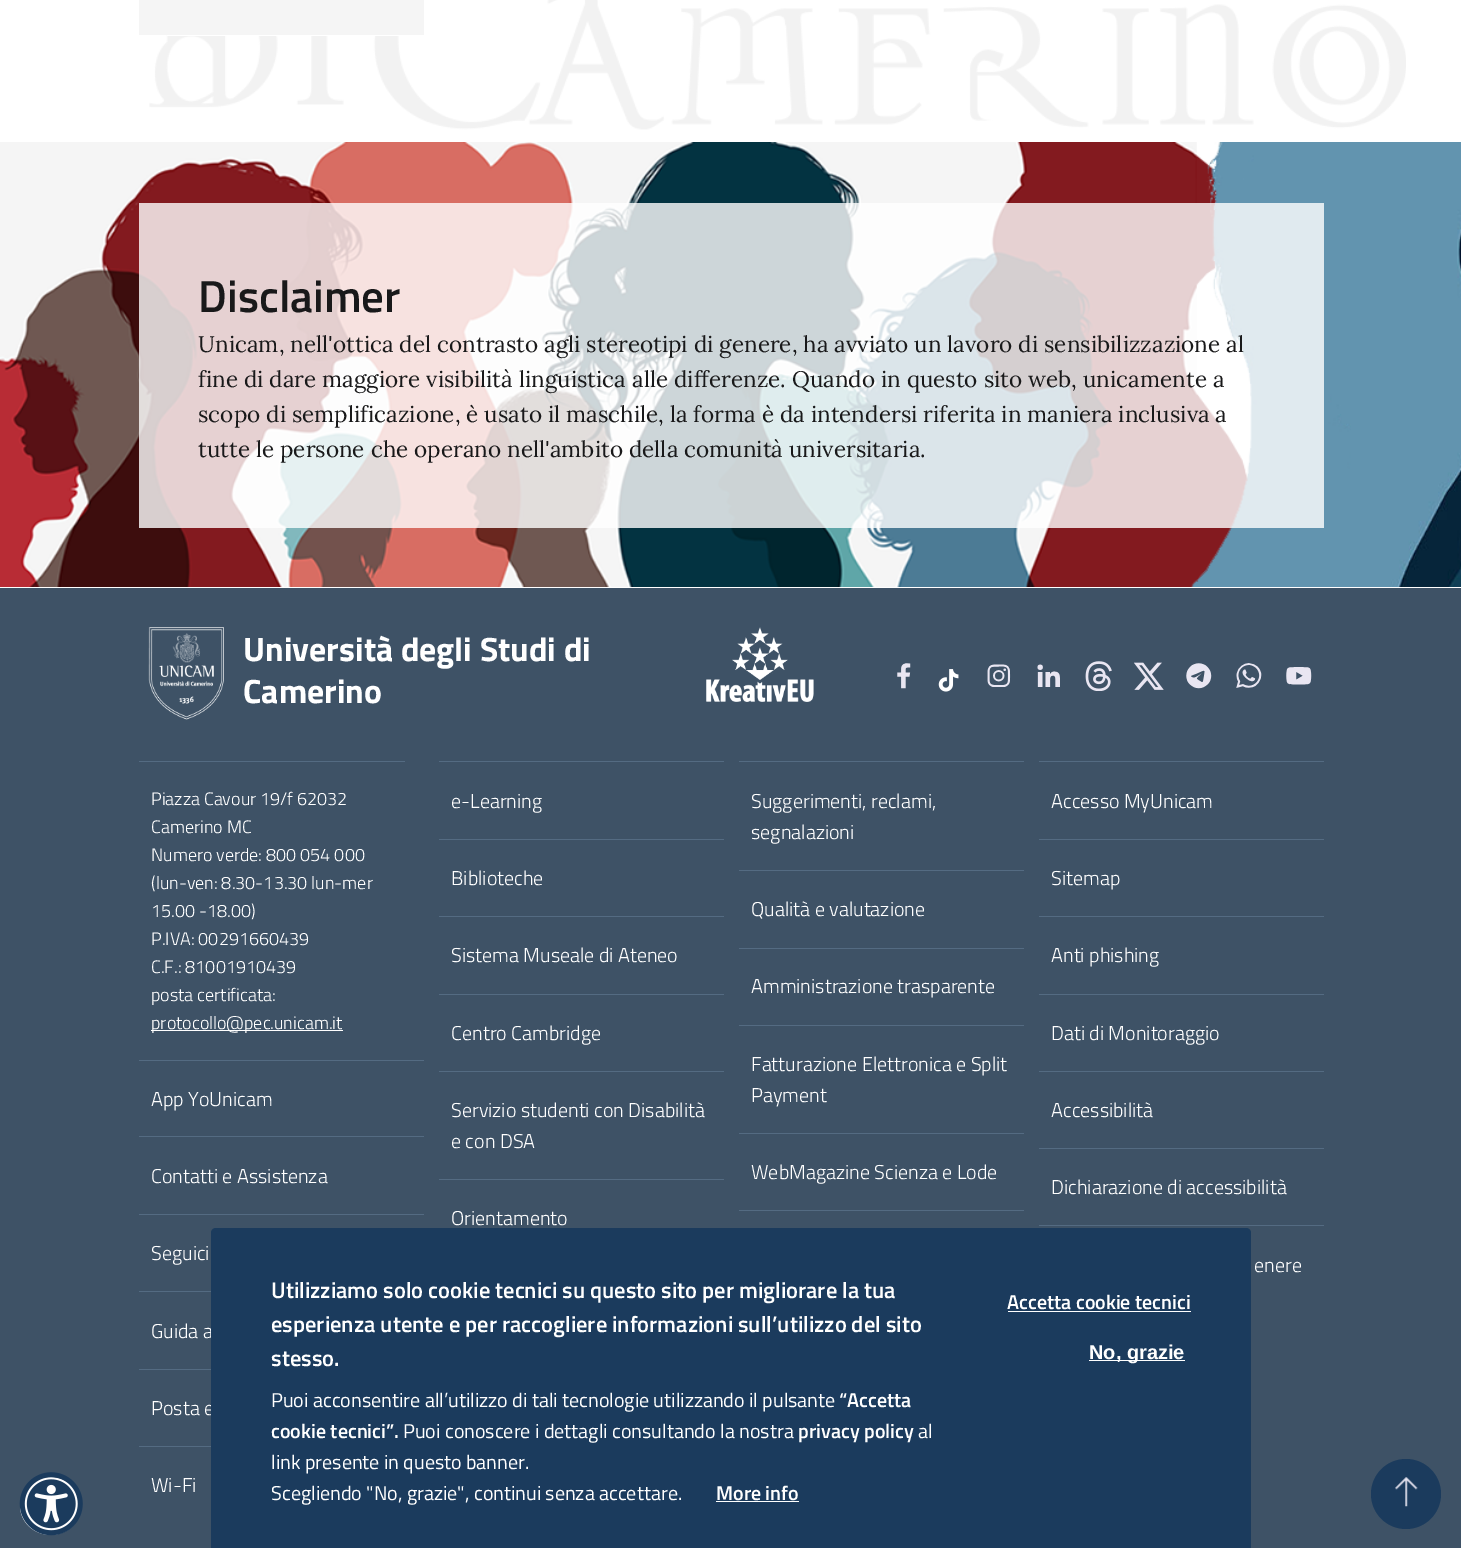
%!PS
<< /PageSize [1461 1548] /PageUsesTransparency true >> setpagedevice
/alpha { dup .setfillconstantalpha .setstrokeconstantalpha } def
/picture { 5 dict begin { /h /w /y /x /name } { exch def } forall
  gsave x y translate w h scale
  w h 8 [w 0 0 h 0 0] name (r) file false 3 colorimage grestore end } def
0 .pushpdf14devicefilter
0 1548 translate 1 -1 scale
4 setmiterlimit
1 setgray
0 0 1461 1548 rectfill
(img1.rgb) 149 0 1257 130 picture
0.961 setgray
139 0 285 35 rectfill
1 setgray
167 35 232 1 rectfill
(img2.rgb) 0 142 1461 445 picture
0.8 alpha
139 203 1185 325 rectfill
/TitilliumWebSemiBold-SemiBold [45 0 0 -45 0 0] selectfont
1 alpha
0.098 0.098 0.102 setrgbcolor
198 312 moveto (Disclaimer) show
/Lora-Regular [22.5 0 0 -22.5 0 0] selectfont
198 352 moveto (Unicam, nell'ottica del contrasto agli stereotipi di genere, ha avviato un lavoro di sensibilizzazione al) show
198 387 moveto (fine di dare maggiore visibilità linguistica alle differenze. Quando in questo sito web, unicamente a) show
198 422 moveto (scopo di semplificazione, è usato il maschile, la forma è da intendersi riferita in maniera inclusiva a) show
198 457 moveto (tutte le persone che operano nell'ambito della comunità universitaria.) show
0.243 0.322 0.4 setrgbcolor
0 588 1461 960 rectfill
(img3.rgb) 148 627 76 93 picture
/TitilliumWeb-Bold [33.75 0 0 -33.75 0 0] selectfont
1 setgray
243 661 moveto (Università degli Studi di) show
243 703 moveto (Camerino) show
(img4.rgb) 706 627 108 75 picture
(img5.rgb) 897 663 14 26 picture
(img6.rgb) 938 669 21 23 picture
(img7.rgb) 987 664 24 23 picture
(img8.rgb) 1037 664 23 23 picture
(img9.rgb) 1085 661 27 30 picture
(img10.rgb) 1134 662 30 28 picture
(img11.rgb) 1186 663 26 26 picture
(img12.rgb) 1236 663 26 25 picture
(img13.rgb) 1286 667 26 18 picture
0.329 0.42 0.51 setrgbcolor
139 761 266 1 rectfill
/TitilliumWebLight-Light [18 0 0 -18 0 0] selectfont
1 setgray
151 805 moveto (Piazza Cavour 19/f 62032) show
151 833 moveto (Camerino MC) show
151 861 moveto (Numero verde: 800 054 000) show
151 889 moveto (\(lun-ven: 8.30-13.30 lun-mer) show
151 917 moveto (15.00 -18.00\)) show
151 945 moveto (P.IVA: 00291660439) show
151 973 moveto (C.F.: 81001910439) show
151 1001 moveto (posta certificata:) show
151 1030 192 1 rectfill
151 1029 moveto (protocollo@pec.unicam.it) show
0.329 0.42 0.51 setrgbcolor
139 1060 285 1 rectfill
/TitilliumWebLight-Light [20 0 0 -20 0 0] selectfont
1 setgray
151 1106 moveto (App YoUnicam) show
0.329 0.42 0.51 setrgbcolor
139 1136 285 1 rectfill
1 setgray
151 1183 moveto (Contatti e Assistenza) show
0.329 0.42 0.51 setrgbcolor
139 1214 285 1 rectfill
1 setgray
151 1260 moveto (Seguici) show
0.329 0.42 0.51 setrgbcolor
139 1291 72 1 rectfill
1 setgray
151 1338 moveto (Guida a) show
0.329 0.42 0.51 setrgbcolor
139 1369 72 1 rectfill
1 setgray
151 1415 moveto (Posta e) show
0.329 0.42 0.51 setrgbcolor
139 1446 72 1 rectfill
1 setgray
151 1492 moveto (Wi-Fi) show
0.329 0.42 0.51 setrgbcolor
439 761 285 1 rectfill
1 setgray
451 808 moveto (e-Learning) show
0.329 0.42 0.51 setrgbcolor
439 839 285 1 rectfill
1 setgray
451 885 moveto (Biblioteche) show
0.329 0.42 0.51 setrgbcolor
439 916 285 1 rectfill
1 setgray
451 962 moveto (Sistema Museale di Ateneo) show
0.329 0.42 0.51 setrgbcolor
439 994 285 1 rectfill
1 setgray
451 1040 moveto (Centro Cambridge) show
0.329 0.42 0.51 setrgbcolor
439 1071 285 1 rectfill
1 setgray
451 1117 moveto (Servizio studenti con Disabilità) show
451 1148 moveto (e con DSA) show
0.329 0.42 0.51 setrgbcolor
439 1179 285 1 rectfill
1 setgray
451 1225 moveto (Orientamento) show
0.329 0.42 0.51 setrgbcolor
739 761 285 1 rectfill
1 setgray
751 808 moveto (Suggerimenti, reclami,) show
751 839 moveto (segnalazioni) show
0.329 0.42 0.51 setrgbcolor
739 870 285 1 rectfill
1 setgray
751 916 moveto (Qualità e valutazione) show
0.329 0.42 0.51 setrgbcolor
739 948 285 1 rectfill
1 setgray
751 993 moveto (Amministrazione trasparente) show
0.329 0.42 0.51 setrgbcolor
739 1025 285 1 rectfill
1 setgray
751 1071 moveto (Fatturazione Elettronica e Split) show
751 1102 moveto (Payment) show
0.329 0.42 0.51 setrgbcolor
739 1133 285 1 rectfill
1 setgray
751 1179 moveto (WebMagazine Scienza e Lode) show
0.329 0.42 0.51 setrgbcolor
739 1210 285 1 rectfill
1039 761 285 1 rectfill
1 setgray
1051 808 moveto (Accesso MyUnicam) show
0.329 0.42 0.51 setrgbcolor
1039 839 285 1 rectfill
1 setgray
1051 885 moveto (Sitemap) show
0.329 0.42 0.51 setrgbcolor
1039 916 285 1 rectfill
1 setgray
1051 962 moveto (Anti phishing) show
0.329 0.42 0.51 setrgbcolor
1039 994 285 1 rectfill
1 setgray
1051 1040 moveto (Dati di Monitoraggio) show
0.329 0.42 0.51 setrgbcolor
1039 1071 285 1 rectfill
1 setgray
1051 1117 moveto (Accessibilità) show
0.329 0.42 0.51 setrgbcolor
1039 1148 285 1 rectfill
1 setgray
1051 1194 moveto (Dichiarazione di accessibilità) show
0.329 0.42 0.51 setrgbcolor
1039 1225 285 1 rectfill
1 setgray
1254 1272 moveto (enere) show
1 0.996 0.996 setrgbcolor
newpath 50.5 1477 moveto 67.5 1477 81 1490 81 1506 curveto 81 1522 67.5 1535 50.5 1535 curveto 33.5 1535 20 1522 20 1506 curveto 20 1490 33.5 1477 50.5 1477 curveto closepath fill
(img14.rgb) 19 1472 64 64 picture
0.106 0.231 0.365 setrgbcolor
newpath 216 1228 moveto 1246 1228 lineto 1249 1228 1251 1230 1251 1233 curveto 1251 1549 lineto 211 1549 lineto 211 1233 lineto 211 1230 213 1228 216 1228 curveto closepath fill
/TitilliumWebSemiBold-SemiBold [22.5 0 0 -22.5 0 0] selectfont
1 setgray
271 1298 moveto (Utilizziamo solo cookie tecnici su questo sito per migliorare la tua) show
271 1332 moveto (esperienza utente e per raccogliere informazioni sull’utilizzo del sito) show
271 1366 moveto (stesso.) show
/TitilliumWeb-Regular [20 0 0 -20 0 0] selectfont
271 1407 moveto (Puoi acconsentire all’utilizzo di tali tecnologie utilizzando il pulsante) show
/TitilliumWebSemiBold-SemiBold [20 0 0 -20 0 0] selectfont
839 1407 moveto (“Accetta) show
271 1438 moveto (cookie tecnici”.) show
/TitilliumWeb-Regular [20 0 0 -20 0 0] selectfont
403 1438 moveto (Puoi conoscere i dettagli consultando la nostra) show
/TitilliumWebSemiBold-SemiBold [20 0 0 -20 0 0] selectfont
798 1438 moveto (privacy policy) show
/TitilliumWeb-Regular [20 0 0 -20 0 0] selectfont
918 1438 moveto (al) show
271 1469 moveto (link presente in questo banner.) show
271 1500 moveto (Scegliendo "No, grazie", continui senza accettare.) show
/TitilliumWebSemiBold-SemiBold [20 0 0 -20 0 0] selectfont
716 1500 moveto (More info) show
716 1501 83 1 rectfill
1007 1309 moveto (Accetta cookie tecnici) show
1008 1311 183 1 rectfill
1089 1360 96 1 rectfill
/LiberationSans-Bold [20 0 0 -20 0 0] selectfont
1089 1359 moveto (No, grazie) show
0.106 0.231 0.365 setrgbcolor
newpath 1406 1494 35 0 360 arc closepath fill
(img15.rgb) 1395 1477 23 30 picture
.poppdf14devicefilter showpage
